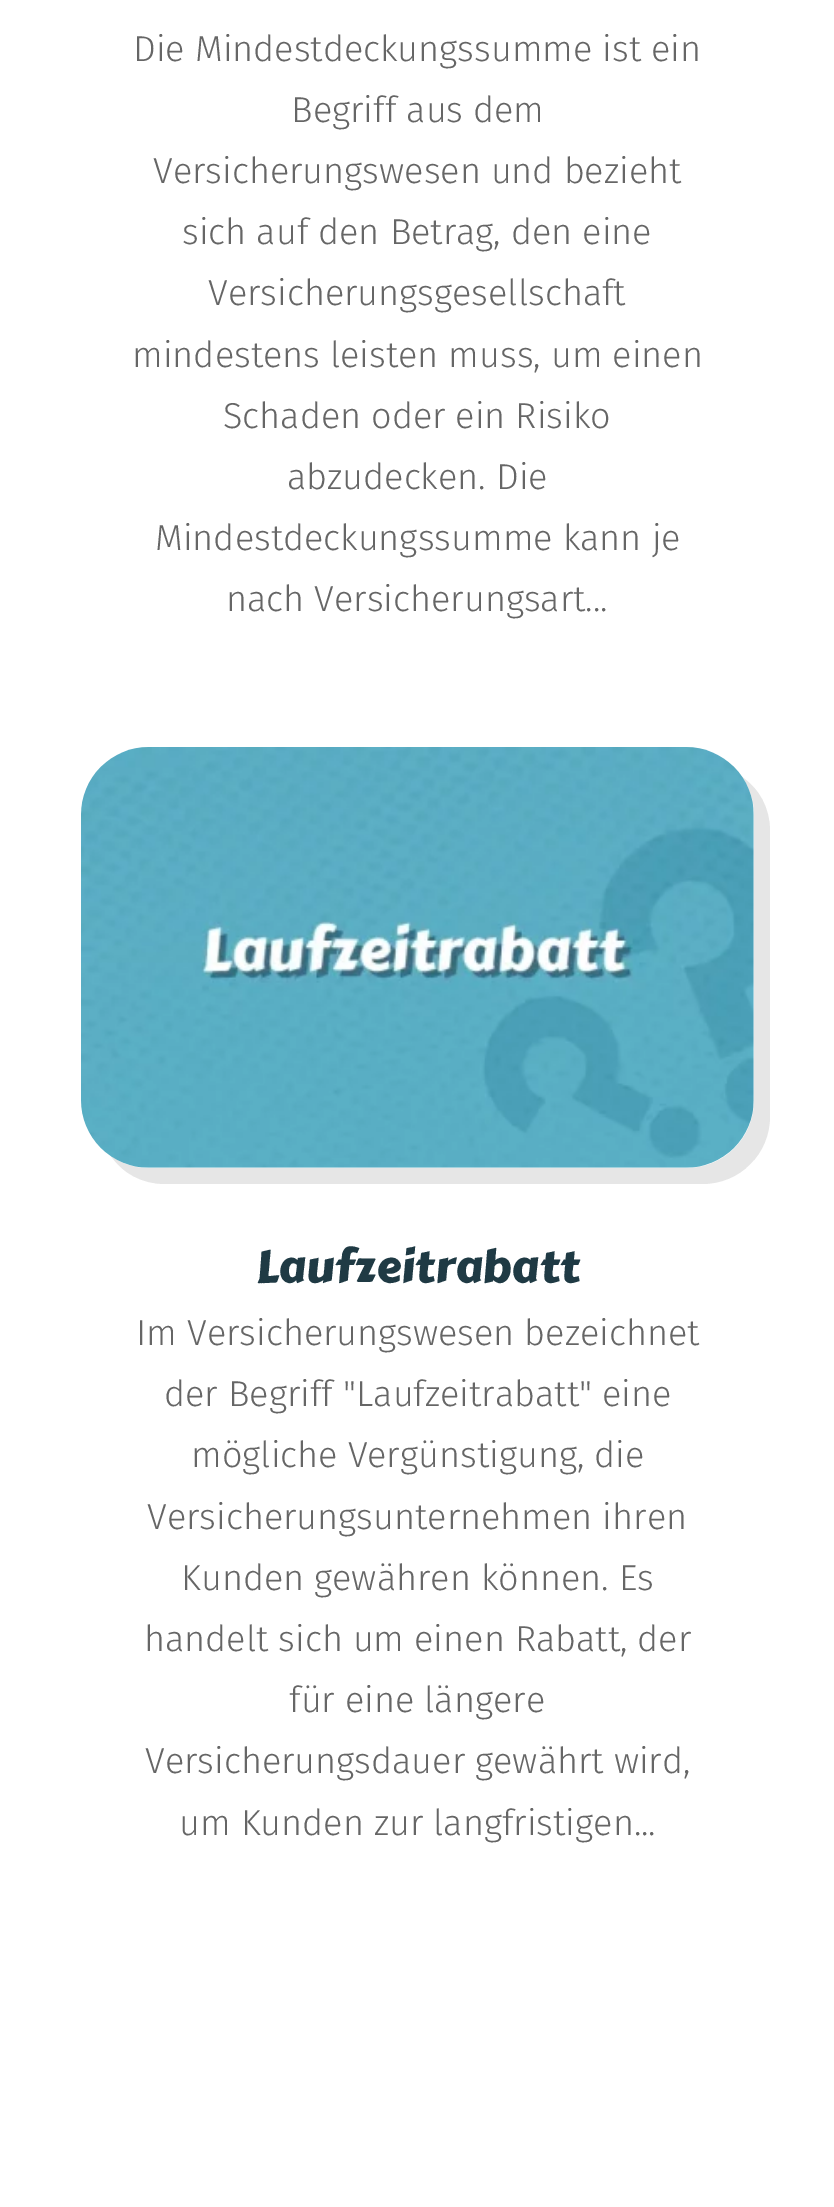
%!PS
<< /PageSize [834 2207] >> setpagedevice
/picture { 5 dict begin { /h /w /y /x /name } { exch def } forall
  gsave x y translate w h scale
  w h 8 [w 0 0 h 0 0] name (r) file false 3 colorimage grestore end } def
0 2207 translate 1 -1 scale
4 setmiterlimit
1 setgray
0 0 834 2207 rectfill
/FiraSans-Light [36 0 0 -36 0 0] selectfont
0.4 setgray
133 61 moveto (Die Mindestdeckungssumme ist ein) show
291 122 moveto (Begriff aus dem) show
153 183 moveto (Versicherungswesen und bezieht) show
182 244 moveto (sich auf den Betrag, den eine) show
208 305 moveto (Versicherungsgesellschaft) show
132 367 moveto (mindestens leisten muss, um einen) show
223 428 moveto (Schaden oder ein Risiko) show
287 489 moveto (abzudecken. Die) show
155 550 moveto (Mindestdeckungssumme kann je) show
226 611 moveto (nach Versicherungsart...) show
0.902 setgray
newpath 110 1155 moveto 122 1173 142 1184 165 1184 curveto 702 1184 lineto 740 1184 770 1154 770 1116 curveto 770 831 lineto 770 808 759 788 741 776 curveto 749 787 754 800 754 814 curveto 754 1100 lineto 754 1138 724 1168 686 1168 curveto 148 1168 lineto 134 1168 121 1163 110 1155 curveto closepath fill
(img1.rgb) 81 747 673 421 picture
/CarterOne-Regular [45 0 0 -45 0 0] selectfont
0.122 0.227 0.267 setrgbcolor
256 1282 moveto (Laufzeitrabatt) show
/FiraSans-Light [36 0 0 -36 0 0] selectfont
0.4 setgray
136 1345 moveto (Im Versicherungswesen bezeichnet) show
164 1406 moveto (der Begriff "Laufzeitrabatt" eine) show
191 1467 moveto (mögliche Vergünstigung, die) show
147 1529 moveto (Versicherungsunternehmen ihren) show
181 1590 moveto (Kunden gewähren können. Es) show
144 1651 moveto (handelt sich um einen Rabatt, der) show
289 1712 moveto (für eine längere) show
145 1773 moveto (Versicherungsdauer gewährt wird,) show
179 1835 moveto (um Kunden zur langfristigen...) show
showpage
